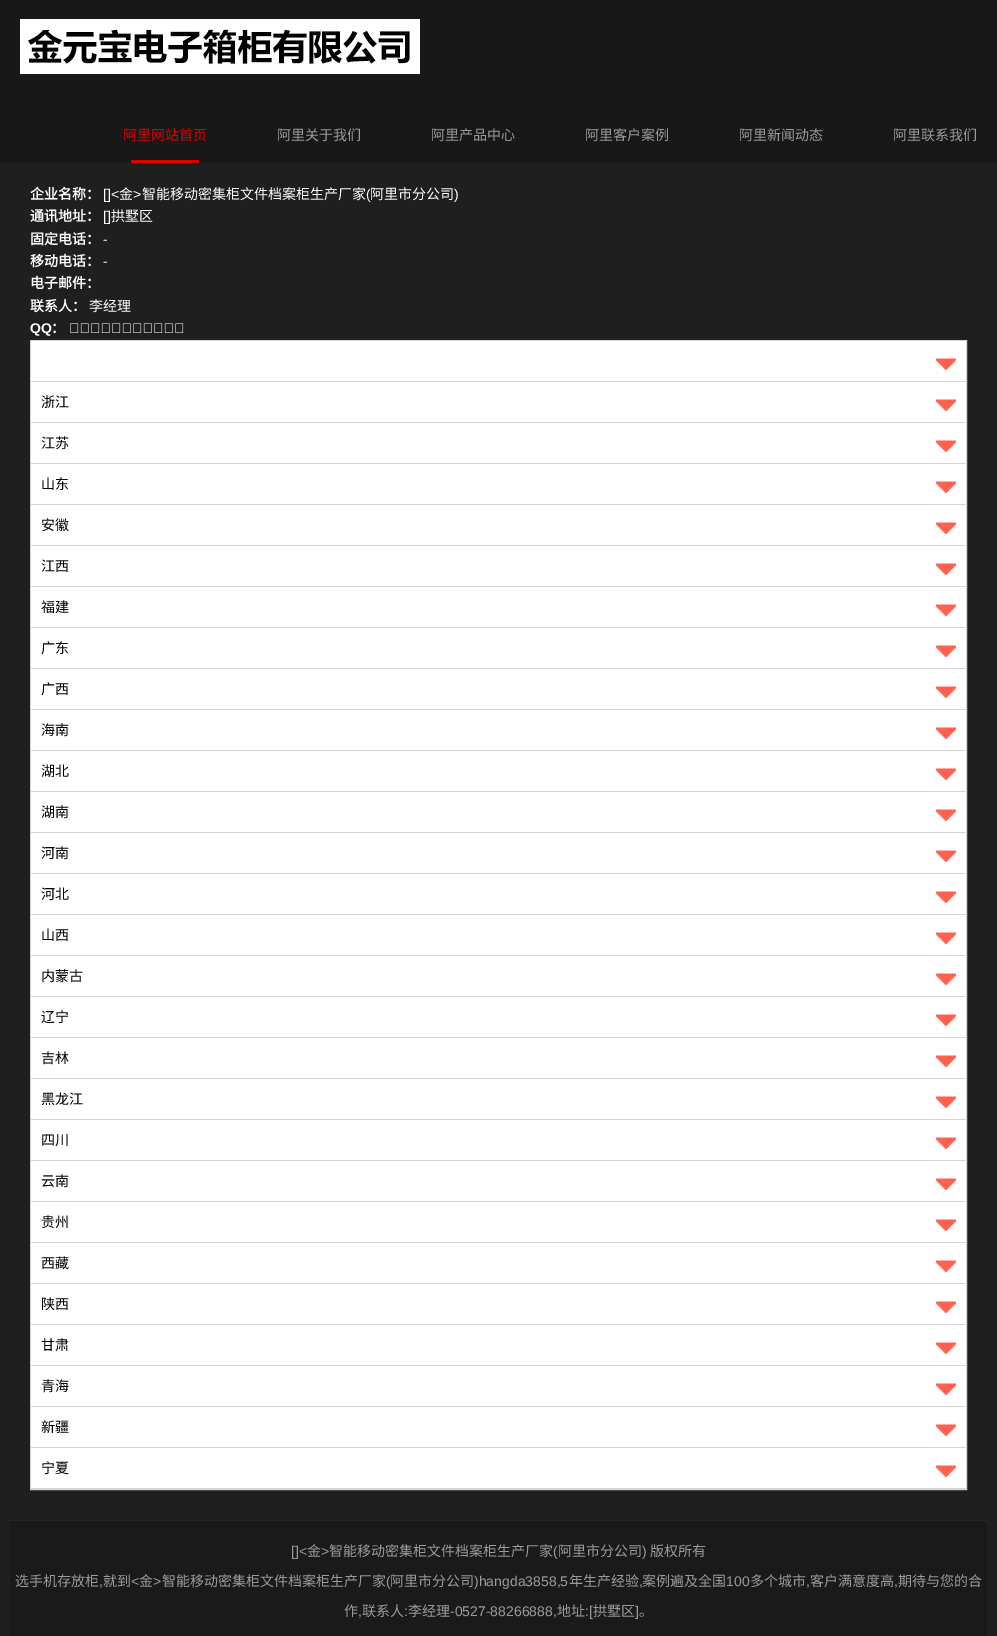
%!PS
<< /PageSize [997 1636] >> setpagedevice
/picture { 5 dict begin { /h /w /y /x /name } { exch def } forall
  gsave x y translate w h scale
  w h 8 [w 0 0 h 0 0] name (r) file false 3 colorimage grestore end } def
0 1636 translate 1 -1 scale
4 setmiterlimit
0.122 setgray
0 0 997 1636 rectfill
0.094 setgray
0 0 997 163 rectfill
(img1.rgb) 20 19 400 55 picture
/NotoSansCJKSC-Regular [14 0 0 -14 0 0] selectfont
0.863 0 0 setrgbcolor
123 140 moveto (阿里网站首页) show
131 160 68 3 rectfill
0.608 setgray
277 140 moveto (阿里关于我们) show
431 140 moveto (阿里产品中心) show
585 140 moveto (阿里客户案例) show
739 140 moveto (阿里新闻动态) show
893 140 moveto (阿里联系我们) show
/NotoSansCJKSC-Bold [14 0 0 -14 0 0] selectfont
1 setgray
30 199 moveto (企业名称：) show
/LiberationSans-Regular [14 0 0 -14 0 0] selectfont
103 199 moveto ([]<) show
/NotoSansCJKSC-Regular [14 0 0 -14 0 0] selectfont
119 199 moveto (金) show
/LiberationSans-Regular [14 0 0 -14 0 0] selectfont
133 199 moveto (>) show
/NotoSansCJKSC-Regular [14 0 0 -14 0 0] selectfont
142 199 moveto (智能移动密集柜文件档案柜生产厂家) show
/LiberationSans-Regular [14 0 0 -14 0 0] selectfont
366 199 moveto (\() show
/NotoSansCJKSC-Regular [14 0 0 -14 0 0] selectfont
370 199 moveto (阿里市分公司) show
/LiberationSans-Regular [14 0 0 -14 0 0] selectfont
454 199 moveto (\)) show
/NotoSansCJKSC-Bold [14 0 0 -14 0 0] selectfont
30 221 moveto (通讯地址：) show
/LiberationSans-Regular [14 0 0 -14 0 0] selectfont
103 221 moveto ([]) show
/NotoSansCJKSC-Regular [14 0 0 -14 0 0] selectfont
111 221 moveto (拱墅区) show
/NotoSansCJKSC-Bold [14 0 0 -14 0 0] selectfont
30 244 moveto (固定电话：) show
/LiberationSans-Regular [14 0 0 -14 0 0] selectfont
103 244 moveto (-) show
/NotoSansCJKSC-Bold [14 0 0 -14 0 0] selectfont
30 266 moveto (移动电话：) show
/LiberationSans-Regular [14 0 0 -14 0 0] selectfont
103 266 moveto (-) show
/NotoSansCJKSC-Bold [14 0 0 -14 0 0] selectfont
30 288 moveto (电子邮件：) show
30 311 moveto (联系人：) show
/NotoSansCJKSC-Regular [14 0 0 -14 0 0] selectfont
89 311 moveto (李经理) show
/LiberationSans-Bold [14 0 0 -14 0 0] selectfont
30 333 moveto (QQ) show
/NotoSansCJKSC-Bold [14 0 0 -14 0 0] selectfont
51 333 moveto (：) show
(img2.rgb) 70 323 114 10 picture
0.831 setgray
30.5 340.5 936 1149 rectstroke
1 setgray
31 341 935 40 rectfill
0.831 setgray
31 381 935 1 rectfill
(img3.rgb) 936 358 20 12 picture
1 setgray
31 382 935 40 rectfill
0.831 setgray
31 422 935 1 rectfill
/NotoSansCJKSC-Regular [14 0 0 -14 0 0] selectfont
0 setgray
41 407 moveto (浙江) show
(img3.rgb) 936 399 20 12 picture
1 setgray
31 423 935 40 rectfill
0.831 setgray
31 463 935 1 rectfill
0 setgray
41 448 moveto (江苏) show
(img3.rgb) 936 440 20 12 picture
1 setgray
31 464 935 40 rectfill
0.831 setgray
31 504 935 1 rectfill
0 setgray
41 489 moveto (山东) show
(img3.rgb) 936 481 20 12 picture
1 setgray
31 505 935 40 rectfill
0.831 setgray
31 545 935 1 rectfill
0 setgray
41 530 moveto (安徽) show
(img3.rgb) 936 522 20 12 picture
1 setgray
31 546 935 40 rectfill
0.831 setgray
31 586 935 1 rectfill
0 setgray
41 571 moveto (江西) show
(img3.rgb) 936 563 20 12 picture
1 setgray
31 587 935 40 rectfill
0.831 setgray
31 627 935 1 rectfill
0 setgray
41 612 moveto (福建) show
(img3.rgb) 936 604 20 12 picture
1 setgray
31 628 935 40 rectfill
0.831 setgray
31 668 935 1 rectfill
0 setgray
41 653 moveto (广东) show
(img3.rgb) 936 645 20 12 picture
1 setgray
31 669 935 40 rectfill
0.831 setgray
31 709 935 1 rectfill
0 setgray
41 694 moveto (广西) show
(img3.rgb) 936 686 20 12 picture
1 setgray
31 710 935 40 rectfill
0.831 setgray
31 750 935 1 rectfill
0 setgray
41 735 moveto (海南) show
(img3.rgb) 936 727 20 12 picture
1 setgray
31 751 935 40 rectfill
0.831 setgray
31 791 935 1 rectfill
0 setgray
41 776 moveto (湖北) show
(img3.rgb) 936 768 20 12 picture
1 setgray
31 792 935 40 rectfill
0.831 setgray
31 832 935 1 rectfill
0 setgray
41 817 moveto (湖南) show
(img3.rgb) 936 809 20 12 picture
1 setgray
31 833 935 40 rectfill
0.831 setgray
31 873 935 1 rectfill
0 setgray
41 858 moveto (河南) show
(img3.rgb) 936 850 20 12 picture
1 setgray
31 874 935 40 rectfill
0.831 setgray
31 914 935 1 rectfill
0 setgray
41 899 moveto (河北) show
(img3.rgb) 936 891 20 12 picture
1 setgray
31 915 935 40 rectfill
0.831 setgray
31 955 935 1 rectfill
0 setgray
41 940 moveto (山西) show
(img3.rgb) 936 932 20 12 picture
1 setgray
31 956 935 40 rectfill
0.831 setgray
31 996 935 1 rectfill
0 setgray
41 981 moveto (内蒙古) show
(img3.rgb) 936 973 20 12 picture
1 setgray
31 997 935 40 rectfill
0.831 setgray
31 1037 935 1 rectfill
0 setgray
41 1022 moveto (辽宁) show
(img3.rgb) 936 1014 20 12 picture
1 setgray
31 1038 935 40 rectfill
0.831 setgray
31 1078 935 1 rectfill
0 setgray
41 1063 moveto (吉林) show
(img3.rgb) 936 1055 20 12 picture
1 setgray
31 1079 935 40 rectfill
0.831 setgray
31 1119 935 1 rectfill
0 setgray
41 1104 moveto (黑龙江) show
(img3.rgb) 936 1096 20 12 picture
1 setgray
31 1120 935 40 rectfill
0.831 setgray
31 1160 935 1 rectfill
0 setgray
41 1145 moveto (四川) show
(img3.rgb) 936 1137 20 12 picture
1 setgray
31 1161 935 40 rectfill
0.831 setgray
31 1201 935 1 rectfill
0 setgray
41 1186 moveto (云南) show
(img3.rgb) 936 1178 20 12 picture
1 setgray
31 1202 935 40 rectfill
0.831 setgray
31 1242 935 1 rectfill
0 setgray
41 1227 moveto (贵州) show
(img3.rgb) 936 1219 20 12 picture
1 setgray
31 1243 935 40 rectfill
0.831 setgray
31 1283 935 1 rectfill
0 setgray
41 1268 moveto (西藏) show
(img3.rgb) 936 1260 20 12 picture
1 setgray
31 1284 935 40 rectfill
0.831 setgray
31 1324 935 1 rectfill
0 setgray
41 1309 moveto (陕西) show
(img3.rgb) 936 1301 20 12 picture
1 setgray
31 1325 935 40 rectfill
0.831 setgray
31 1365 935 1 rectfill
0 setgray
41 1350 moveto (甘肃) show
(img3.rgb) 936 1342 20 12 picture
1 setgray
31 1366 935 40 rectfill
0.831 setgray
31 1406 935 1 rectfill
0 setgray
41 1391 moveto (青海) show
(img3.rgb) 936 1383 20 12 picture
1 setgray
31 1407 935 40 rectfill
0.831 setgray
31 1447 935 1 rectfill
0 setgray
41 1432 moveto (新疆) show
(img3.rgb) 936 1424 20 12 picture
1 setgray
31 1448 935 40 rectfill
0.831 setgray
31 1488 935 1 rectfill
0 setgray
41 1473 moveto (宁夏) show
(img3.rgb) 936 1465 20 12 picture
0.102 setgray
10 1521 977 115 rectfill
0.149 setgray
10 1520 977 1 rectfill
/LiberationSans-Regular [14 0 0 -14 0 0] selectfont
0.608 setgray
291 1556 moveto ([]<) show
/NotoSansCJKSC-Regular [14 0 0 -14 0 0] selectfont
307 1556 moveto (金) show
/LiberationSans-Regular [14 0 0 -14 0 0] selectfont
321 1556 moveto (>) show
/NotoSansCJKSC-Regular [14 0 0 -14 0 0] selectfont
329 1556 moveto (智能移动密集柜文件档案柜生产厂家) show
/LiberationSans-Regular [14 0 0 -14 0 0] selectfont
553 1556 moveto (\() show
/NotoSansCJKSC-Regular [14 0 0 -14 0 0] selectfont
558 1556 moveto (阿里市分公司) show
/LiberationSans-Regular [14 0 0 -14 0 0] selectfont
642 1556 moveto (\)) show
/NotoSansCJKSC-Regular [14 0 0 -14 0 0] selectfont
650 1556 moveto (版权所有) show
15 1586 moveto (选手机存放柜) show
103 1586 moveto (就到) show
/LiberationSans-Regular [14 0 0 -14 0 0] selectfont
131 1586 moveto (<) show
/NotoSansCJKSC-Regular [14 0 0 -14 0 0] selectfont
139 1586 moveto (金) show
/LiberationSans-Regular [14 0 0 -14 0 0] selectfont
153 1586 moveto (>) show
/NotoSansCJKSC-Regular [14 0 0 -14 0 0] selectfont
162 1586 moveto (智能移动密集柜文件档案柜生产厂家) show
/LiberationSans-Regular [14 0 0 -14 0 0] selectfont
386 1586 moveto (\() show
/NotoSansCJKSC-Regular [14 0 0 -14 0 0] selectfont
390 1586 moveto (阿里市分公司) show
/LiberationSans-Regular [14 0 0 -14 0 0] selectfont
474 1586 moveto (\)hangda3858,5) show
/NotoSansCJKSC-Regular [14 0 0 -14 0 0] selectfont
569 1586 moveto (年生产经验) show
642 1586 moveto (案例遍及全国) show
/LiberationSans-Regular [14 0 0 -14 0 0] selectfont
726 1586 moveto (100) show
/NotoSansCJKSC-Regular [14 0 0 -14 0 0] selectfont
750 1586 moveto (多个城市) show
810 1586 moveto (客户满意度高) show
898 1586 moveto (期待与您的合) show
/LiberationSans-Regular [14 0 0 -14 0 0] selectfont
99 1586 moveto (,) show
639 1586 moveto (,) show
806 1586 moveto (,) show
894 1586 moveto (,) show
/NotoSansCJKSC-Regular [14 0 0 -14 0 0] selectfont
344 1616 moveto (作) show
/LiberationSans-Regular [14 0 0 -14 0 0] selectfont
358 1616 moveto (,) show
/NotoSansCJKSC-Regular [14 0 0 -14 0 0] selectfont
362 1616 moveto (联系人) show
/LiberationSans-Regular [14 0 0 -14 0 0] selectfont
404 1616 moveto (:) show
/NotoSansCJKSC-Regular [14 0 0 -14 0 0] selectfont
408 1616 moveto (李经理) show
/LiberationSans-Regular [14 0 0 -14 0 0] selectfont
450 1616 moveto (-0527-88266888,) show
/NotoSansCJKSC-Regular [14 0 0 -14 0 0] selectfont
557 1616 moveto (地址) show
/LiberationSans-Regular [14 0 0 -14 0 0] selectfont
585 1616 moveto (:[) show
/NotoSansCJKSC-Regular [14 0 0 -14 0 0] selectfont
593 1616 moveto (拱墅区) show
/LiberationSans-Regular [14 0 0 -14 0 0] selectfont
635 1616 moveto (]) show
/NotoSansCJKSC-Regular [14 0 0 -14 0 0] selectfont
639 1616 moveto (。) show
showpage
